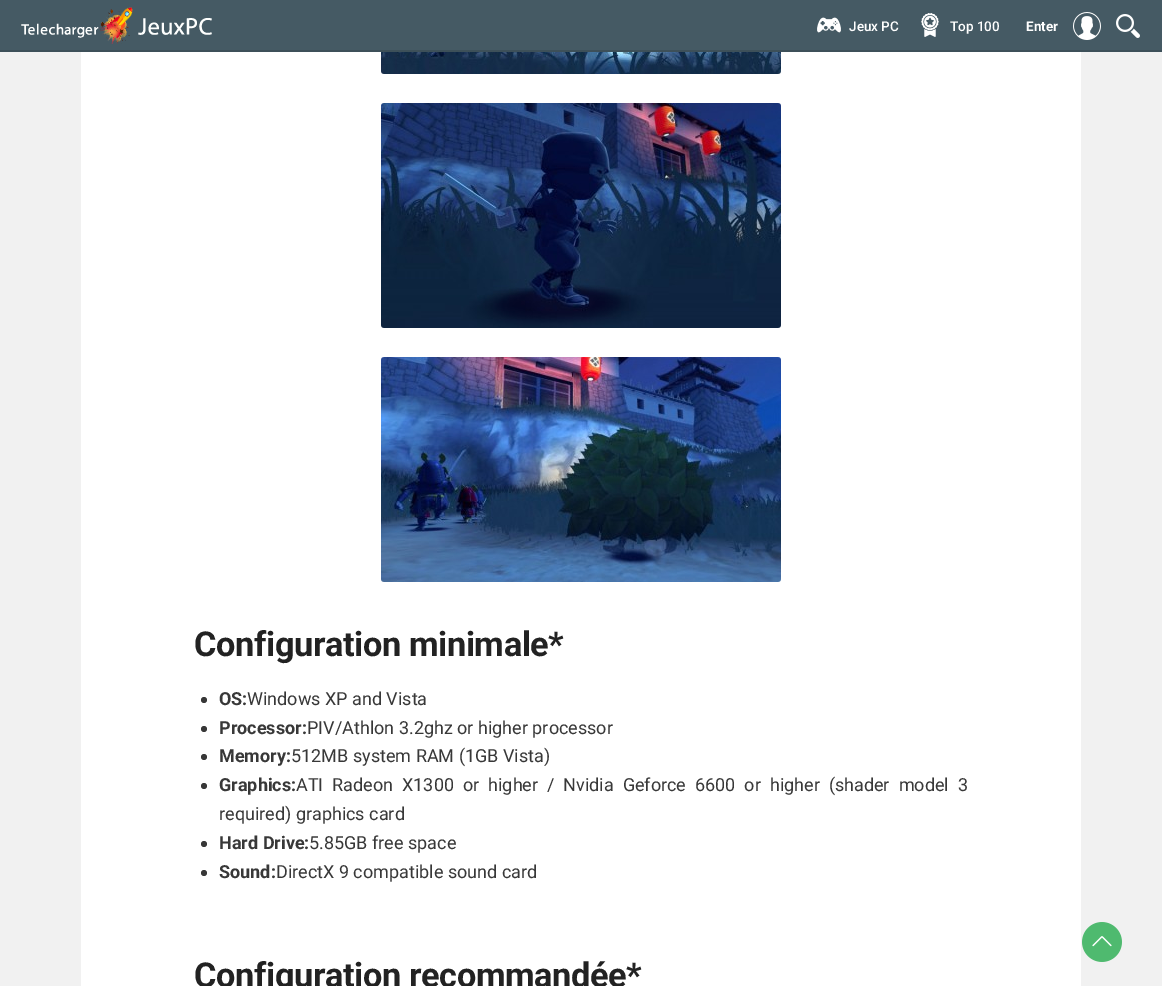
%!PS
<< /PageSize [1162 986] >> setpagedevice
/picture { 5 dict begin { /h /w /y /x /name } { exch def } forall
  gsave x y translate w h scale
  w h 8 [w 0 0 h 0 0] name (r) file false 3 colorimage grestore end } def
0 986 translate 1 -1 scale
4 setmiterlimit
0.945 setgray
0 0 1162 986 rectfill
0.271 0.353 0.392 setrgbcolor
0 0 1162 50 rectfill
0.239 0.314 0.349 setrgbcolor
0 50 1162 2 rectfill
(img1.rgb) 21 7 191 37 picture
(img2.rgb) 817 17 24 16 picture
/Roboto-Medium [13.5 0 0 -13.5 0 0] selectfont
1 setgray
849 31 moveto (Jeux PC) show
(img3.rgb) 921 13 18 24 picture
950 31 moveto (Тop 100) show
/Roboto-Bold [13.5 0 0 -13.5 0 0] selectfont
1026 31 moveto (Enter) show
(img4.rgb) 1073 12 28 28 picture
(img5.rgb) 1116 14 24 24 picture
81 52 1000 934 rectfill
(img6.rgb) 381 52 400 22 picture
(img7.rgb) 381 103 400 225 picture
(img8.rgb) 381 357 400 225 picture
/Roboto-Bold [34.25 0 0 -34.25 0 0] selectfont
0.133 setgray
194 656 moveto -0.35 0 (Configuration minimale*) ashow
0.22 setgray
newpath 204 700 3 0 360 arc closepath fill
/Roboto-Bold [18 0 0 -18 0 0] selectfont
219 705 moveto (OS:) show
/Roboto-Regular [18 0 0 -18 0 0] selectfont
247 705 moveto (Windows XP and Vista) show
newpath 204 729 3 0 360 arc closepath fill
/Roboto-Bold [18 0 0 -18 0 0] selectfont
219 734 moveto (Processor:) show
/Roboto-Regular [18 0 0 -18 0 0] selectfont
307 734 moveto (PIV/Athlon 3.2ghz or higher processor) show
newpath 204 757 3 0 360 arc closepath fill
/Roboto-Bold [18 0 0 -18 0 0] selectfont
219 762 moveto (Memory:) show
/Roboto-Regular [18 0 0 -18 0 0] selectfont
291 762 moveto (512MB system RAM \(1GB Vista\)) show
newpath 204 786 3 0 360 arc closepath fill
/Roboto-Bold [18 0 0 -18 0 0] selectfont
219 791 moveto (Graphics:) show
/Roboto-Regular [18 0 0 -18 0 0] selectfont
296 791 moveto 4.5 0 32 (ATI Radeon X1300 or higher / Nvidia Geforce 6600 or higher \(shader model 3) widthshow
219 820 moveto (required\) graphics card) show
newpath 204 844 3 0 360 arc closepath fill
/Roboto-Bold [18 0 0 -18 0 0] selectfont
219 849 moveto (Hard Drive:) show
/Roboto-Regular [18 0 0 -18 0 0] selectfont
309 849 moveto (5.85GB free space) show
newpath 204 873 3 0 360 arc closepath fill
/Roboto-Bold [18 0 0 -18 0 0] selectfont
219 878 moveto (Sound:) show
/Roboto-Regular [18 0 0 -18 0 0] selectfont
276 878 moveto (DirectX 9 compatible sound card) show
/Roboto-Bold [34.25 0 0 -34.25 0 0] selectfont
0.133 setgray
194 987 moveto -0.35 0 (Configuration recommandée*) ashow
(img9.rgb) 1082 922 40 40 picture
showpage
